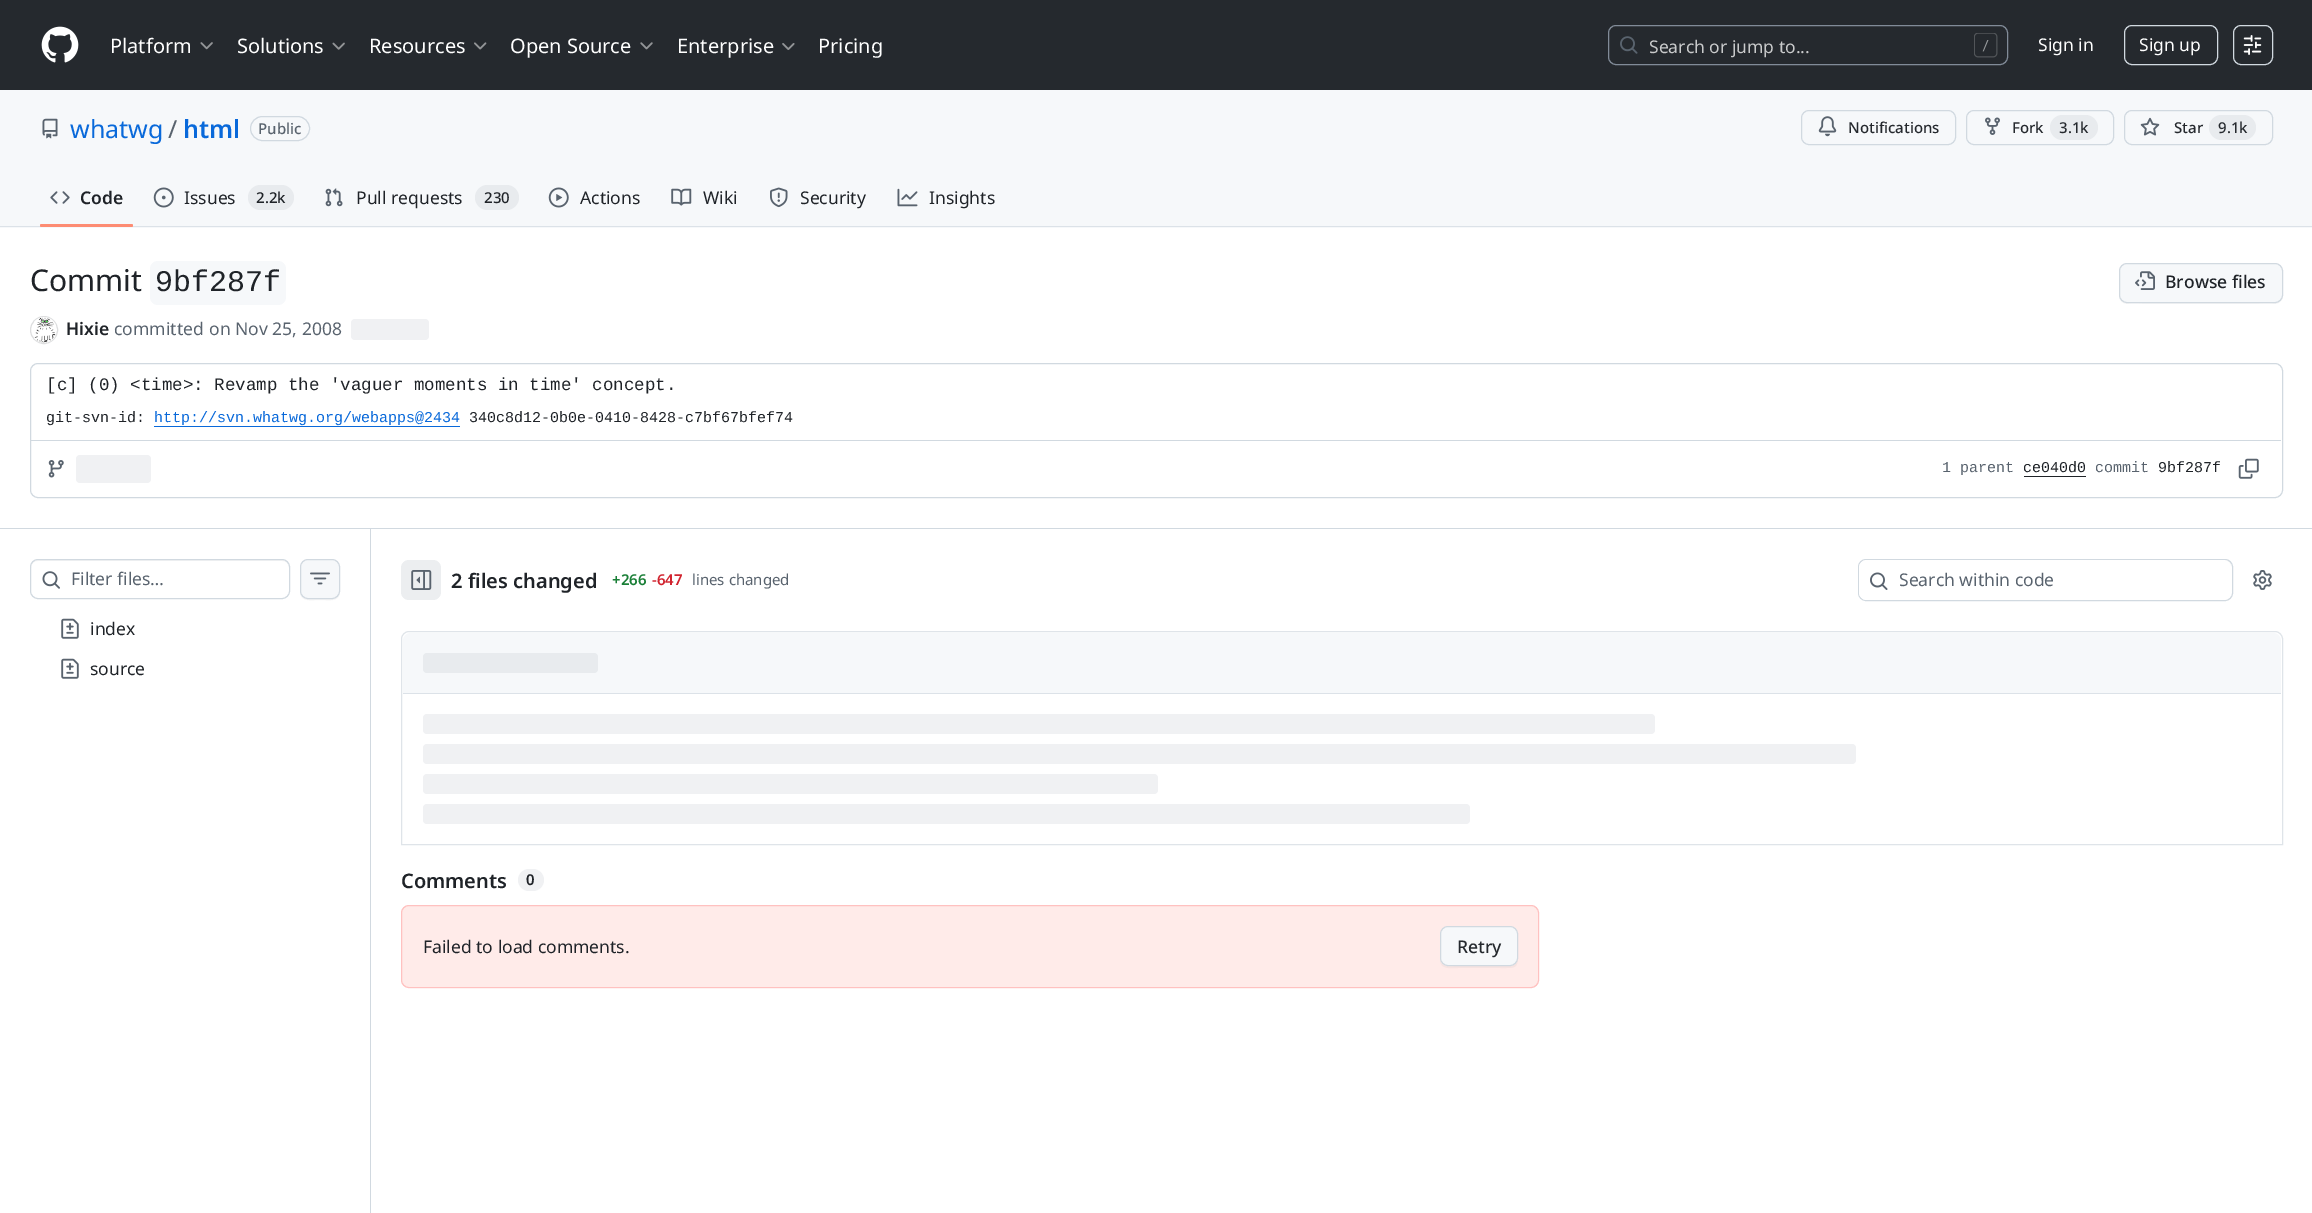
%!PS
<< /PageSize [2312 1213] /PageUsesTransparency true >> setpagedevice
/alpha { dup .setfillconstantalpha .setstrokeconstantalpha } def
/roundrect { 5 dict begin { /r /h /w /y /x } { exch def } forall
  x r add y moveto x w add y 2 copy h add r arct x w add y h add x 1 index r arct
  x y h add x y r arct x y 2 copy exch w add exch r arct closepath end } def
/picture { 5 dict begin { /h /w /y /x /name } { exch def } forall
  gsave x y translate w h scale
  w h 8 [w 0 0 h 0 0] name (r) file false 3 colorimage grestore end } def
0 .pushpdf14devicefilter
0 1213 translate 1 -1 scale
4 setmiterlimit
1 setgray
0 0 2312 1213 rectfill
0.145 0.161 0.18 setrgbcolor
0 0 2312 90 rectfill
(img1.rgb) 41 26 38 37 picture
/NotoSans-Regular [20 0 0 -20 0 0] selectfont
1 setgray
110 53 moveto (Platform) show
(img2.rgb) 200 42 13 8 picture
237 53 moveto (Solutions) show
(img3.rgb) 332 42 13 8 picture
369 53 moveto (Resources) show
(img4.rgb) 474 42 13 8 picture
510 53 moveto (Open Source) show
(img5.rgb) 640 42 13 8 picture
677 53 moveto (Enterprise) show
(img6.rgb) 782 43 13 7 picture
818 53 moveto (Pricing) show
0.506 0.545 0.596 setrgbcolor
1608.5 25.5 399 39 7.5 roundrect stroke
(img7.rgb) 1620 36 18 18 picture
/NotoSans-Regular [17.5 0 0 -17.5 0 0] selectfont
0.788 0.792 0.796 setrgbcolor
1649 53 moveto (Search or jump to...) show
(img8.rgb) 1974 33 24 25 picture
1 setgray
2038 51 moveto (Sign in) show
0.82 0.851 0.878 setrgbcolor
2124.5 25.5 93 39 7.5 roundrect stroke
1 setgray
2139 51 moveto (Sign up) show
0.82 0.851 0.878 setrgbcolor
2233.5 25.5 39 39 7.5 roundrect stroke
(img9.rgb) 2243 35 19 20 picture
0.965 0.973 0.98 setrgbcolor
0 90 2312 138 rectfill
(img10.rgb) 42 118 16 21 picture
/NotoSans-Regular [25 0 0 -25 0 0] selectfont
0.035 0.412 0.855 setrgbcolor
70 138 moveto (whatwg) show
0.349 0.388 0.431 setrgbcolor
168 138 moveto (/) show
/NotoSans-SemiBold [25 0 0 -25 0 0] selectfont
0.035 0.412 0.855 setrgbcolor
183 138 moveto (html) show
0.82 0.851 0.878 setrgbcolor
250.5 116.5 59 24 12 roundrect stroke
/NotoSans-Medium [15 0 0 -15 0 0] selectfont
0.349 0.388 0.431 setrgbcolor
258 134 moveto (Public) show
0.82 0.851 0.878 setrgbcolor
1801.5 110.5 154 34 7.5 roundrect stroke
(img11.rgb) 1818 116 19 21 picture
0.145 0.161 0.18 setrgbcolor
1848 133 moveto (Notifications) show
0.82 0.851 0.878 setrgbcolor
1966.5 110.5 147 34 7.5 roundrect stroke
(img12.rgb) 1985 117 15 18 picture
0.145 0.161 0.18 setrgbcolor
2012 133 moveto (Fork) show
0.91 0.922 0.933 setrgbcolor
2050 115 48 25 12.5 roundrect fill
0.145 0.161 0.18 setrgbcolor
2059 133 moveto (3.1k) show
0.82 0.851 0.878 setrgbcolor
2124.5 110.5 148 34 7.5 roundrect stroke
(img13.rgb) 2140 117 20 19 picture
0.145 0.161 0.18 setrgbcolor
2174 133 moveto (Star) show
0.91 0.922 0.933 setrgbcolor
2209 115 47 25 12.5 roundrect fill
0.145 0.161 0.18 setrgbcolor
2218 133 moveto (9.1k) show
0.863 0.886 0.91 setrgbcolor
0 226 2312 1 rectfill
(img14.rgb) 50 191 20 13 picture
/NotoSans-SemiBold [17.5 0 0 -17.5 0 0] selectfont
0.122 0.137 0.157 setrgbcolor
80 204 moveto (Code) show
0.992 0.549 0.451 setrgbcolor
40 224 93 3 1.5 roundrect fill
(img15.rgb) 153 187 21 21 picture
/NotoSans-Regular [17.5 0 0 -17.5 0 0] selectfont
0.122 0.137 0.157 setrgbcolor
184 204 moveto (Issues) show
0.91 0.922 0.933 setrgbcolor
248 185 46 25 12.5 roundrect fill
/NotoSans-Medium [15 0 0 -15 0 0] selectfont
0.122 0.137 0.157 setrgbcolor
256 203 moveto (2.2k) show
(img16.rgb) 325 188 18 19 picture
/NotoSans-Regular [17.5 0 0 -17.5 0 0] selectfont
356 204 moveto (Pull requests) show
0.91 0.922 0.933 setrgbcolor
475 185 44 25 12.5 roundrect fill
/NotoSans-Medium [15 0 0 -15 0 0] selectfont
0.122 0.137 0.157 setrgbcolor
484 203 moveto (230) show
(img17.rgb) 548 187 21 21 picture
/NotoSans-Regular [17.5 0 0 -17.5 0 0] selectfont
580 204 moveto (Actions) show
(img18.rgb) 671 188 21 18 picture
703 204 moveto (Wiki) show
(img19.rgb) 770 187 18 21 picture
800 204 moveto (Security) show
(img20.rgb) 897 188 21 19 picture
929 204 moveto (Insights) show
/NotoSans-Regular [30 0 0 -30 0 0] selectfont
30 291 moveto (Commit) show
0.965 0.973 0.98 setrgbcolor
150 261 136 44 8 roundrect fill
/LiberationMono-Regular [30 0 0 -30 0 0] selectfont
0.122 0.137 0.157 setrgbcolor
155 291 moveto (9bf287f) show
0.965 setgray
newpath 2119 297 moveto 2120 301 2123 304 2127 304 curveto 2275 304 lineto 2279 304 2283 300 2283 296 curveto 2283 272 lineto 2282 269 lineto 2282 297 lineto 2280 308 2251 302 2250 302 curveto 2151 302 lineto 2150 302 2122 308 2119 297 curveto closepath fill
0.965 0.973 0.98 setrgbcolor
2119.5 263.5 163 39 7.5 roundrect gsave fill grestore
0.82 0.851 0.878 setrgbcolor
stroke
(img21.rgb) 2135 271 20 19 picture
/NotoSans-Medium [17.5 0 0 -17.5 0 0] selectfont
0.122 0.137 0.157 setrgbcolor
2165 288 moveto (Browse files) show
0.867 0.871 0.875 setrgbcolor
newpath 44 330 13.5 0 360 arc closepath stroke
(img22.rgb) 34 317 22 26 picture
/NotoSans-SemiBold [17.5 0 0 -17.5 0 0] selectfont
0.122 0.137 0.157 setrgbcolor
66 335 moveto (Hixie) show
/NotoSans-Regular [17.5 0 0 -17.5 0 0] selectfont
0.349 0.388 0.431 setrgbcolor
114 335 moveto (committed) show
209 335 moveto (on Nov 25, 2008) show
0.941 0.945 0.953 setrgbcolor
351 319 78 21 4 roundrect fill
0.82 0.851 0.878 setrgbcolor
30.5 363.5 2252 134 7.5 roundrect stroke
31 440 2250 1 rectfill
/LiberationMono-Regular [17.5 0 0 -17.5 0 0] selectfont
0.122 0.137 0.157 setrgbcolor
46 390 moveto ([c] \(0\) <time>: Revamp the 'vaguer moments in time' concept.) show
/LiberationMono-Regular [15 0 0 -15 0 0] selectfont
46 422 moveto (git-svn-id:) show
0.035 0.412 0.855 setrgbcolor
154 422 moveto (http://svn.whatwg.org/webapps@2434) show
154 426 306 1 rectfill
0.122 0.137 0.157 setrgbcolor
469 422 moveto (340c8d12-0b0e-0410-8428-c7bf67bfef74) show
(img23.rgb) 48 460 16 18 picture
0.941 0.945 0.953 setrgbcolor
76 455 75 28 4 roundrect fill
0.349 0.388 0.431 setrgbcolor
1942 472 moveto (1 parent) show
0.122 0.137 0.157 setrgbcolor
2023 472 moveto (ce040d0) show
2024 476 62 1 rectfill
0.349 0.388 0.431 setrgbcolor
2095 472 moveto (commit) show
0.122 0.137 0.157 setrgbcolor
2158 472 moveto (9bf287f) show
(img24.rgb) 2238 458 21 21 picture
0.82 0.851 0.878 setrgbcolor
0 528 2312 1 rectfill
0.965 setgray
newpath 38 561 moveto 282 561 lineto 286 561 289 564 289 568 curveto 289 565 288 561 284 560 curveto 37 560 lineto 32 560 31 564 31 568 curveto 31 564 34 561 38 561 curveto closepath fill
0.82 0.851 0.878 setrgbcolor
30.5 559.5 259 39 7.5 roundrect stroke
(img25.rgb) 42 571 18 18 picture
/NotoSans-Regular [17.5 0 0 -17.5 0 0] selectfont
0.349 0.388 0.431 setrgbcolor
71 585 moveto (Filter files…) show
0.965 setgray
newpath 300 591 moveto 300 603 312 600 320 600 curveto 328 600 340 603 340 591 curveto 340 601 326 599 320 599 curveto 314 599 300 601 300 591 curveto closepath fill
0.965 0.973 0.98 setrgbcolor
300.5 559.5 39 39 7.5 roundrect gsave fill grestore
0.82 0.851 0.878 setrgbcolor
stroke
(img26.rgb) 310 572 20 13 picture
(img27.rgb) 61 618 18 21 picture
0.122 0.137 0.157 setrgbcolor
90 635 moveto (index) show
(img27.rgb) 61 658 18 21 picture
90 675 moveto (source) show
0.82 0.851 0.878 setrgbcolor
370 529 1 684 rectfill
0.925 0.933 0.941 setrgbcolor
401 560 40 40 8 roundrect fill
(img28.rgb) 411 570 21 20 picture
/NotoSans-SemiBold [20 0 0 -20 0 0] selectfont
0.122 0.137 0.157 setrgbcolor
451 588 moveto (2 files changed) show
/NotoSans-SemiBold [15 0 0 -15 0 0] selectfont
0.102 0.498 0.216 setrgbcolor
612 585 moveto (+266) show
0.82 0.141 0.184 setrgbcolor
652 585 moveto (-647) show
/NotoSans-Regular [15 0 0 -15 0 0] selectfont
0.349 0.388 0.431 setrgbcolor
692 585 moveto (lines changed) show
0.965 setgray
newpath 1865 561 moveto 2225 561 lineto 2228 561 2231 564 2231 568 curveto 2231 566 lineto 2231 563 2228 560 2225 560 curveto 1865 560 lineto 1862 560 1859 563 1859 566 curveto 1859 568 lineto 1859 564 1862 561 1865 561 curveto closepath fill
0.82 0.851 0.878 setrgbcolor
1858.5 559.5 374 41 7.5 roundrect stroke
1 setgray
1859 560 372 40 8 roundrect fill
(img29.rgb) 1870 572 18 18 picture
/NotoSans-Regular [17.5 0 0 -17.5 0 0] selectfont
0.349 0.388 0.431 setrgbcolor
1899 586 moveto (Search within code) show
(img30.rgb) 2253 570 19 20 picture
0.875 0.894 0.914 setrgbcolor
newpath 409 631.5 moveto 2275 631.5 lineto 2279 631.5 2282.5 635 2282.5 639 curveto 2282.5 844.5 lineto 401.5 844.5 lineto 401.5 639 lineto 401.5 635 405 631.5 409 631.5 curveto closepath stroke
0.965 0.973 0.98 setrgbcolor
newpath 411 633 moveto 2273 633 lineto 2277.5 633 2281 636.5 2281 641 curveto 2281 694 lineto 403 694 lineto 403 641 lineto 403 636.5 406.5 633 411 633 curveto closepath fill
0.863 0.886 0.91 setrgbcolor
403 693 1878 1 rectfill
0.91 0.922 0.933 setrgbcolor
423 653 175 20 4 roundrect fill
0.941 0.945 0.953 setrgbcolor
423 714 1232 20 4 roundrect fill
423 744 1433 20 4 roundrect fill
423 774 735 20 4 roundrect fill
423 804 1047 20 4 roundrect fill
/NotoSans-SemiBold [20 0 0 -20 0 0] selectfont
0.122 0.137 0.157 setrgbcolor
401 888 moveto (Comments) show
0.941 0.945 0.953 setrgbcolor
518 869 26 22 11 roundrect fill
/NotoSans-SemiBold [15 0 0 -15 0 0] selectfont
0.122 0.137 0.157 setrgbcolor
526 885 moveto (0) show
1 0.922 0.914 setrgbcolor
401 905 1138 83 8 roundrect fill
0.4 alpha
1 0.506 0.51 setrgbcolor
401.5 905.5 1137 82 7.5 roundrect stroke
/NotoSans-Regular [17.5 0 0 -17.5 0 0] selectfont
1 alpha
0.122 0.137 0.157 setrgbcolor
423 953 moveto (Failed to load comments.) show
0.965 0.89 0.882 setrgbcolor
newpath 1440 959 moveto 1440 970 1450 968 1458 968 curveto 1500 968 lineto 1517 968 1518 969 1518 952 curveto 1517 933 lineto 1518 950 lineto 1518 967 1516 966 1500 966 curveto 1458 966 lineto 1453 966 1445 968 1441 963 curveto closepath fill
0.965 0.973 0.98 setrgbcolor
1440.5 926.5 77 39 7.5 roundrect gsave fill grestore
0.82 0.851 0.878 setrgbcolor
stroke
/NotoSans-Medium [17.5 0 0 -17.5 0 0] selectfont
0.145 0.161 0.18 setrgbcolor
1457 953 moveto (Retry) show
.poppdf14devicefilter showpage
